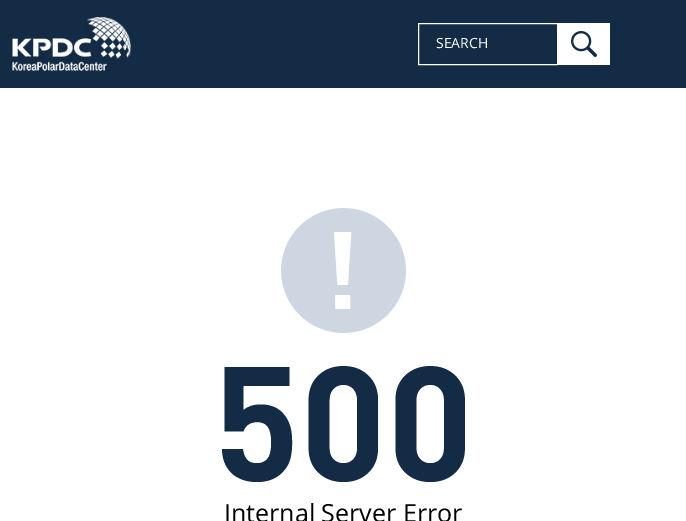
%!PS
<< /PageSize [686 521] >> setpagedevice
/picture { 5 dict begin { /h /w /y /x /name } { exch def } forall
  gsave x y translate w h scale
  w h 8 [w 0 0 h 0 0] name (r) file false 3 colorimage grestore end } def
0 521 translate 1 -1 scale
4 setmiterlimit
1 setgray
0 0 686 521 rectfill
0.075 0.169 0.271 setrgbcolor
0 0 686 88 rectfill
(img1.rgb) 12 17 119 54 picture
1 setgray
418.5 23.5 139 41 rectstroke
558 23 52 42 rectfill
(img2.rgb) 571 31 26 26 picture
/OpenSans-Regular [14 0 0 -14 0 0] selectfont
436 48 moveto (SEARCH) show
(img3.rgb) 281 208 125 125 picture
(img4.rgb) 222 366 243 116 picture
/OpenSans-Regular [25 0 0 -25 0 0] selectfont
0 setgray
224 522 moveto (Internal Server Error) show
showpage
